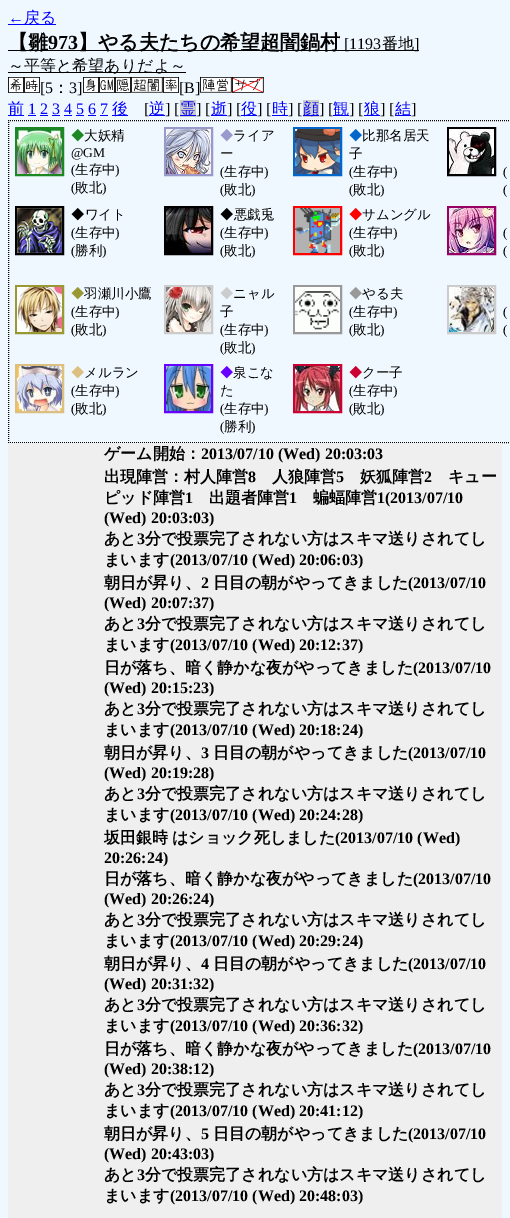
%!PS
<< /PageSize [510 1218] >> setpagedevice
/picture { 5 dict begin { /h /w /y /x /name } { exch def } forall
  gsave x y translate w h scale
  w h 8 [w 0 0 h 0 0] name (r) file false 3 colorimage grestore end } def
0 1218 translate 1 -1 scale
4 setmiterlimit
0.941 0.973 1 setrgbcolor
0 0 510 1218 rectfill
/LiberationSerif-Regular [16 0 0 -16 0 0] selectfont
0 0 1 setrgbcolor
8 23 moveto (←) show
8 24 48 1 rectfill
/WenQuanYiZenHei-Medium [16 0 0 -16 0 0] selectfont
24 23 moveto (戻る) show
0 setgray
8 50 411 1 rectfill
/WenQuanYiZenHei-Bold [20 0 0 -20 0 0] selectfont
8 49 moveto (【雛) show
/LiberationSerif-Bold [20 0 0 -20 0 0] selectfont
48 49 moveto (973) show
/WenQuanYiZenHei-Bold [20 0 0 -20 0 0] selectfont
78 49 moveto (】やる夫たちの希望超闇鍋村) show
/LiberationSerif-Regular [16 0 0 -16 0 0] selectfont
344 49 moveto ([1193) show
/WenQuanYiZenHei-Medium [16 0 0 -16 0 0] selectfont
382 49 moveto (番地) show
/LiberationSerif-Regular [16 0 0 -16 0 0] selectfont
414 49 moveto (]) show
8 72 178 1 rectfill
/WenQuanYiZenHei-Medium [16 0 0 -16 0 0] selectfont
8 71 moveto (～平等と希望ありだよ～) show
(img1.rgb) 8 77 16 16 picture
(img2.rgb) 24 77 16 16 picture
/LiberationSerif-Regular [16 0 0 -16 0 0] selectfont
40 93 moveto ([5) show
/WenQuanYiZenHei-Medium [16 0 0 -16 0 0] selectfont
53 93 moveto (：) show
/LiberationSerif-Regular [16 0 0 -16 0 0] selectfont
69 93 moveto (3]) show
(img3.rgb) 83 77 16 16 picture
(img4.rgb) 99 77 16 16 picture
(img5.rgb) 115 77 16 16 picture
(img6.rgb) 131 77 32 16 picture
(img7.rgb) 163 77 16 16 picture
179 93 moveto ([B]) show
(img8.rgb) 200 77 32 16 picture
(img9.rgb) 232 77 32 16 picture
0 0 1 setrgbcolor
8 115 16 1 rectfill
/WenQuanYiZenHei-Medium [16 0 0 -16 0 0] selectfont
8 114 moveto (前) show
/LiberationSerif-Regular [16 0 0 -16 0 0] selectfont
28 114 moveto (1 2 3 4 5 6 7) show
28 115 8 1 rectfill
112 115 16 1 rectfill
/WenQuanYiZenHei-Medium [16 0 0 -16 0 0] selectfont
112 114 moveto (後) show
/LiberationSerif-Regular [16 0 0 -16 0 0] selectfont
0 setgray
144 114 moveto ([) show
0 0 1 setrgbcolor
149 115 16 1 rectfill
/WenQuanYiZenHei-Medium [16 0 0 -16 0 0] selectfont
149 114 moveto (逆) show
/LiberationSerif-Regular [16 0 0 -16 0 0] selectfont
0 setgray
165 114 moveto (] [) show
0.8 setgray
180 100 16 17 rectfill
0 0 1 setrgbcolor
180 115 16 1 rectfill
/WenQuanYiZenHei-Medium [16 0 0 -16 0 0] selectfont
180 114 moveto (霊) show
/LiberationSerif-Regular [16 0 0 -16 0 0] selectfont
0 setgray
196 114 moveto (] [) show
0 0 1 setrgbcolor
211 115 16 1 rectfill
/WenQuanYiZenHei-Medium [16 0 0 -16 0 0] selectfont
211 114 moveto (逝) show
/LiberationSerif-Regular [16 0 0 -16 0 0] selectfont
0 setgray
227 114 moveto (] [) show
0 0 1 setrgbcolor
241 115 16 1 rectfill
/WenQuanYiZenHei-Medium [16 0 0 -16 0 0] selectfont
241 114 moveto (役) show
/LiberationSerif-Regular [16 0 0 -16 0 0] selectfont
0 setgray
257 114 moveto (] [) show
0 0 1 setrgbcolor
272 115 16 1 rectfill
/WenQuanYiZenHei-Medium [16 0 0 -16 0 0] selectfont
272 114 moveto (時) show
/LiberationSerif-Regular [16 0 0 -16 0 0] selectfont
0 setgray
288 114 moveto (] [) show
0.8 setgray
303 100 16 17 rectfill
0 0 1 setrgbcolor
303 115 16 1 rectfill
/WenQuanYiZenHei-Medium [16 0 0 -16 0 0] selectfont
303 114 moveto (顔) show
/LiberationSerif-Regular [16 0 0 -16 0 0] selectfont
0 setgray
319 114 moveto (] [) show
0 0 1 setrgbcolor
333 115 16 1 rectfill
/WenQuanYiZenHei-Medium [16 0 0 -16 0 0] selectfont
333 114 moveto (観) show
/LiberationSerif-Regular [16 0 0 -16 0 0] selectfont
0 setgray
349 114 moveto (] [) show
0 0 1 setrgbcolor
364 115 16 1 rectfill
/WenQuanYiZenHei-Medium [16 0 0 -16 0 0] selectfont
364 114 moveto (狼) show
/LiberationSerif-Regular [16 0 0 -16 0 0] selectfont
0 setgray
380 114 moveto (] [) show
0 0 1 setrgbcolor
395 115 16 1 rectfill
/WenQuanYiZenHei-Medium [16 0 0 -16 0 0] selectfont
395 114 moveto (結) show
/LiberationSerif-Regular [16 0 0 -16 0 0] selectfont
0 setgray
411 114 moveto (]) show
0 0 1 setrgbcolor
40 115 8 1 rectfill
52 115 8 1 rectfill
64 115 8 1 rectfill
76 115 8 1 rectfill
88 115 8 1 rectfill
100 115 8 1 rectfill
0 setgray
[1 1] 0 setdash
newpath 8 120.5 moveto 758 120.5 lineto stroke
newpath 8 442.5 moveto 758 442.5 lineto stroke
newpath 8.5 120 moveto 8.5 443 lineto stroke
0.11 0.533 0.137 setrgbcolor
2 setlinewidth
[] 0 setdash
16 128 47 47 rectstroke
(img10.rgb) 17 129 45 45 picture
/WenQuanYiZenHei-Medium [13.5 0 0 -13.5 0 0] selectfont
71 140 moveto (◆) show
0 setgray
84 140 moveto (大妖精) show
/LiberationSerif-Regular [13.5 0 0 -13.5 0 0] selectfont
71 157 moveto (@GM) show
71 174 moveto (\() show
/WenQuanYiZenHei-Medium [13.5 0 0 -13.5 0 0] selectfont
75 174 moveto (生存中) show
/LiberationSerif-Regular [13.5 0 0 -13.5 0 0] selectfont
115 174 moveto (\)) show
71 192 moveto (\() show
/WenQuanYiZenHei-Medium [13.5 0 0 -13.5 0 0] selectfont
75 192 moveto (敗北) show
/LiberationSerif-Regular [13.5 0 0 -13.5 0 0] selectfont
102 192 moveto (\)) show
0.6 0.6 0.8 setrgbcolor
165 128 47 47 rectstroke
(img11.rgb) 166 129 45 45 picture
/WenQuanYiZenHei-Medium [13.5 0 0 -13.5 0 0] selectfont
220 140 moveto (◆) show
0 setgray
233 140 moveto (ライア) show
220 158 moveto (ー) show
/LiberationSerif-Regular [13.5 0 0 -13.5 0 0] selectfont
220 176 moveto (\() show
/WenQuanYiZenHei-Medium [13.5 0 0 -13.5 0 0] selectfont
224 176 moveto (生存中) show
/LiberationSerif-Regular [13.5 0 0 -13.5 0 0] selectfont
264 176 moveto (\)) show
220 194 moveto (\() show
/WenQuanYiZenHei-Medium [13.5 0 0 -13.5 0 0] selectfont
224 194 moveto (敗北) show
/LiberationSerif-Regular [13.5 0 0 -13.5 0 0] selectfont
251 194 moveto (\)) show
0 0.4 0.8 setrgbcolor
294 128 47 47 rectstroke
(img12.rgb) 295 129 45 45 picture
/WenQuanYiZenHei-Medium [13.5 0 0 -13.5 0 0] selectfont
349 140 moveto (◆) show
0 setgray
362 140 moveto (比那名居天) show
349 158 moveto (子) show
/LiberationSerif-Regular [13.5 0 0 -13.5 0 0] selectfont
349 176 moveto (\() show
/WenQuanYiZenHei-Medium [13.5 0 0 -13.5 0 0] selectfont
353 176 moveto (生存中) show
/LiberationSerif-Regular [13.5 0 0 -13.5 0 0] selectfont
393 176 moveto (\)) show
349 194 moveto (\() show
/WenQuanYiZenHei-Medium [13.5 0 0 -13.5 0 0] selectfont
353 194 moveto (敗北) show
/LiberationSerif-Regular [13.5 0 0 -13.5 0 0] selectfont
380 194 moveto (\)) show
448 128 47 47 rectstroke
(img13.rgb) 449 129 45 45 picture
503 176 moveto (\() show
503 194 moveto (\() show
16 207 47 47 rectstroke
(img14.rgb) 17 208 45 45 picture
/WenQuanYiZenHei-Medium [13.5 0 0 -13.5 0 0] selectfont
71 219 moveto (◆ワイト) show
/LiberationSerif-Regular [13.5 0 0 -13.5 0 0] selectfont
71 237 moveto (\() show
/WenQuanYiZenHei-Medium [13.5 0 0 -13.5 0 0] selectfont
75 237 moveto (生存中) show
/LiberationSerif-Regular [13.5 0 0 -13.5 0 0] selectfont
115 237 moveto (\)) show
71 255 moveto (\() show
/WenQuanYiZenHei-Medium [13.5 0 0 -13.5 0 0] selectfont
75 255 moveto (勝利) show
/LiberationSerif-Regular [13.5 0 0 -13.5 0 0] selectfont
102 255 moveto (\)) show
165 207 47 47 rectstroke
(img15.rgb) 166 208 45 45 picture
/WenQuanYiZenHei-Medium [13.5 0 0 -13.5 0 0] selectfont
220 219 moveto (◆悪戯兎) show
/LiberationSerif-Regular [13.5 0 0 -13.5 0 0] selectfont
220 237 moveto (\() show
/WenQuanYiZenHei-Medium [13.5 0 0 -13.5 0 0] selectfont
224 237 moveto (生存中) show
/LiberationSerif-Regular [13.5 0 0 -13.5 0 0] selectfont
264 237 moveto (\)) show
220 255 moveto (\() show
/WenQuanYiZenHei-Medium [13.5 0 0 -13.5 0 0] selectfont
224 255 moveto (敗北) show
/LiberationSerif-Regular [13.5 0 0 -13.5 0 0] selectfont
251 255 moveto (\)) show
1 0 0 setrgbcolor
294 207 47 47 rectstroke
(img16.rgb) 295 208 45 45 picture
/WenQuanYiZenHei-Medium [13.5 0 0 -13.5 0 0] selectfont
349 219 moveto (◆) show
0 setgray
362 219 moveto (サムングル) show
/LiberationSerif-Regular [13.5 0 0 -13.5 0 0] selectfont
349 237 moveto (\() show
/WenQuanYiZenHei-Medium [13.5 0 0 -13.5 0 0] selectfont
353 237 moveto (生存中) show
/LiberationSerif-Regular [13.5 0 0 -13.5 0 0] selectfont
393 237 moveto (\)) show
349 255 moveto (\() show
/WenQuanYiZenHei-Medium [13.5 0 0 -13.5 0 0] selectfont
353 255 moveto (敗北) show
/LiberationSerif-Regular [13.5 0 0 -13.5 0 0] selectfont
380 255 moveto (\)) show
0.6 0 0.4 setrgbcolor
448 207 47 47 rectstroke
(img17.rgb) 449 208 45 45 picture
0 setgray
503 237 moveto (\() show
503 255 moveto (\() show
0.6 0.6 0.2 setrgbcolor
16 286 47 47 rectstroke
(img18.rgb) 17 287 45 45 picture
/WenQuanYiZenHei-Medium [13.5 0 0 -13.5 0 0] selectfont
71 298 moveto (◆) show
0 setgray
84 298 moveto (羽瀬川小鷹) show
/LiberationSerif-Regular [13.5 0 0 -13.5 0 0] selectfont
71 316 moveto (\() show
/WenQuanYiZenHei-Medium [13.5 0 0 -13.5 0 0] selectfont
75 316 moveto (生存中) show
/LiberationSerif-Regular [13.5 0 0 -13.5 0 0] selectfont
115 316 moveto (\)) show
71 334 moveto (\() show
/WenQuanYiZenHei-Medium [13.5 0 0 -13.5 0 0] selectfont
75 334 moveto (敗北) show
/LiberationSerif-Regular [13.5 0 0 -13.5 0 0] selectfont
102 334 moveto (\)) show
0.8 setgray
165 286 47 47 rectstroke
(img19.rgb) 166 287 45 45 picture
/WenQuanYiZenHei-Medium [13.5 0 0 -13.5 0 0] selectfont
220 298 moveto (◆) show
0 setgray
233 298 moveto (ニャル) show
220 316 moveto (子) show
/LiberationSerif-Regular [13.5 0 0 -13.5 0 0] selectfont
220 334 moveto (\() show
/WenQuanYiZenHei-Medium [13.5 0 0 -13.5 0 0] selectfont
224 334 moveto (生存中) show
/LiberationSerif-Regular [13.5 0 0 -13.5 0 0] selectfont
264 334 moveto (\)) show
220 352 moveto (\() show
/WenQuanYiZenHei-Medium [13.5 0 0 -13.5 0 0] selectfont
224 352 moveto (敗北) show
/LiberationSerif-Regular [13.5 0 0 -13.5 0 0] selectfont
251 352 moveto (\)) show
0.6 setgray
294 286 47 47 rectstroke
(img20.rgb) 295 287 45 45 picture
/WenQuanYiZenHei-Medium [13.5 0 0 -13.5 0 0] selectfont
349 298 moveto (◆) show
0 setgray
362 298 moveto (やる夫) show
/LiberationSerif-Regular [13.5 0 0 -13.5 0 0] selectfont
349 316 moveto (\() show
/WenQuanYiZenHei-Medium [13.5 0 0 -13.5 0 0] selectfont
353 316 moveto (生存中) show
/LiberationSerif-Regular [13.5 0 0 -13.5 0 0] selectfont
393 316 moveto (\)) show
349 334 moveto (\() show
/WenQuanYiZenHei-Medium [13.5 0 0 -13.5 0 0] selectfont
353 334 moveto (敗北) show
/LiberationSerif-Regular [13.5 0 0 -13.5 0 0] selectfont
380 334 moveto (\)) show
0.8 setgray
448 286 47 47 rectstroke
(img21.rgb) 449 287 45 45 picture
0 setgray
503 316 moveto (\() show
503 334 moveto (\() show
0.863 0.753 0.506 setrgbcolor
16 365 47 47 rectstroke
(img22.rgb) 17 366 45 45 picture
/WenQuanYiZenHei-Medium [13.5 0 0 -13.5 0 0] selectfont
71 377 moveto (◆) show
0 setgray
84 377 moveto (メルラン) show
/LiberationSerif-Regular [13.5 0 0 -13.5 0 0] selectfont
71 395 moveto (\() show
/WenQuanYiZenHei-Medium [13.5 0 0 -13.5 0 0] selectfont
75 395 moveto (生存中) show
/LiberationSerif-Regular [13.5 0 0 -13.5 0 0] selectfont
115 395 moveto (\)) show
71 413 moveto (\() show
/WenQuanYiZenHei-Medium [13.5 0 0 -13.5 0 0] selectfont
75 413 moveto (敗北) show
/LiberationSerif-Regular [13.5 0 0 -13.5 0 0] selectfont
102 413 moveto (\)) show
0.4 0 1 setrgbcolor
165 365 47 47 rectstroke
(img23.rgb) 166 366 45 45 picture
/WenQuanYiZenHei-Medium [13.5 0 0 -13.5 0 0] selectfont
220 377 moveto (◆) show
0 setgray
233 377 moveto (泉こな) show
220 395 moveto (た) show
/LiberationSerif-Regular [13.5 0 0 -13.5 0 0] selectfont
220 413 moveto (\() show
/WenQuanYiZenHei-Medium [13.5 0 0 -13.5 0 0] selectfont
224 413 moveto (生存中) show
/LiberationSerif-Regular [13.5 0 0 -13.5 0 0] selectfont
264 413 moveto (\)) show
220 431 moveto (\() show
/WenQuanYiZenHei-Medium [13.5 0 0 -13.5 0 0] selectfont
224 431 moveto (勝利) show
/LiberationSerif-Regular [13.5 0 0 -13.5 0 0] selectfont
251 431 moveto (\)) show
0.8 0 0.2 setrgbcolor
294 365 47 47 rectstroke
(img24.rgb) 295 366 45 45 picture
/WenQuanYiZenHei-Medium [13.5 0 0 -13.5 0 0] selectfont
349 377 moveto (◆) show
0 setgray
362 377 moveto (クー子) show
/LiberationSerif-Regular [13.5 0 0 -13.5 0 0] selectfont
349 395 moveto (\() show
/WenQuanYiZenHei-Medium [13.5 0 0 -13.5 0 0] selectfont
353 395 moveto (生存中) show
/LiberationSerif-Regular [13.5 0 0 -13.5 0 0] selectfont
393 395 moveto (\)) show
349 413 moveto (\() show
/WenQuanYiZenHei-Medium [13.5 0 0 -13.5 0 0] selectfont
353 413 moveto (敗北) show
/LiberationSerif-Regular [13.5 0 0 -13.5 0 0] selectfont
380 413 moveto (\)) show
0.937 setgray
8 443 494 775 rectfill
/WenQuanYiZenHei-Bold [16 0 0 -16 0 0] selectfont
0 setgray
104 459 moveto (ゲーム開始：) show
/LiberationSerif-Bold [16 0 0 -16 0 0] selectfont
201 459 moveto (2013/07/10 \(Wed\) 20:03:03) show
/WenQuanYiZenHei-Bold [16 0 0 -16 0 0] selectfont
104 482 moveto (出現陣営：村人陣営) show
/LiberationSerif-Bold [16 0 0 -16 0 0] selectfont
248 482 moveto (8) show
/WenQuanYiZenHei-Bold [16 0 0 -16 0 0] selectfont
272 482 moveto (人狼陣営) show
/LiberationSerif-Bold [16 0 0 -16 0 0] selectfont
336 482 moveto (5) show
/WenQuanYiZenHei-Bold [16 0 0 -16 0 0] selectfont
360 482 moveto (妖狐陣営) show
/LiberationSerif-Bold [16 0 0 -16 0 0] selectfont
424 482 moveto (2) show
/WenQuanYiZenHei-Bold [16 0 0 -16 0 0] selectfont
448 482 moveto (キュー) show
104 503 moveto (ピッド陣営) show
/LiberationSerif-Bold [16 0 0 -16 0 0] selectfont
185 503 moveto (1) show
/WenQuanYiZenHei-Bold [16 0 0 -16 0 0] selectfont
209 503 moveto (出題者陣営) show
/LiberationSerif-Bold [16 0 0 -16 0 0] selectfont
289 503 moveto (1) show
/WenQuanYiZenHei-Bold [16 0 0 -16 0 0] selectfont
313 503 moveto (蝙蝠陣営) show
/LiberationSerif-Bold [16 0 0 -16 0 0] selectfont
377 503 moveto (1\(2013/07/10) show
104 523 moveto (\(Wed\) 20:03:03\)) show
/WenQuanYiZenHei-Bold [16 0 0 -16 0 0] selectfont
104 544 moveto (あと) show
/LiberationSerif-Bold [16 0 0 -16 0 0] selectfont
137 544 moveto (3) show
/WenQuanYiZenHei-Bold [16 0 0 -16 0 0] selectfont
145 544 moveto (分で投票完了されない方はスキマ送りされてし) show
104 565 moveto (まいます) show
/LiberationSerif-Bold [16 0 0 -16 0 0] selectfont
170 565 moveto (\(2013/07/10 \(Wed\) 20:06:03\)) show
/WenQuanYiZenHei-Bold [16 0 0 -16 0 0] selectfont
104 588 moveto (朝日が昇り、) show
/LiberationSerif-Bold [16 0 0 -16 0 0] selectfont
201 588 moveto (2) show
/WenQuanYiZenHei-Bold [16 0 0 -16 0 0] selectfont
213 588 moveto (日目の朝がやってきました) show
/LiberationSerif-Bold [16 0 0 -16 0 0] selectfont
408 588 moveto (\(2013/07/10) show
104 608 moveto (\(Wed\) 20:07:37\)) show
/WenQuanYiZenHei-Bold [16 0 0 -16 0 0] selectfont
104 629 moveto (あと) show
/LiberationSerif-Bold [16 0 0 -16 0 0] selectfont
137 629 moveto (3) show
/WenQuanYiZenHei-Bold [16 0 0 -16 0 0] selectfont
145 629 moveto (分で投票完了されない方はスキマ送りされてし) show
104 650 moveto (まいます) show
/LiberationSerif-Bold [16 0 0 -16 0 0] selectfont
170 650 moveto (\(2013/07/10 \(Wed\) 20:12:37\)) show
/WenQuanYiZenHei-Bold [16 0 0 -16 0 0] selectfont
104 673 moveto (日が落ち、暗く静かな夜がやってきました) show
/LiberationSerif-Bold [16 0 0 -16 0 0] selectfont
413 673 moveto (\(2013/07/10) show
104 693 moveto (\(Wed\) 20:15:23\)) show
/WenQuanYiZenHei-Bold [16 0 0 -16 0 0] selectfont
104 714 moveto (あと) show
/LiberationSerif-Bold [16 0 0 -16 0 0] selectfont
137 714 moveto (3) show
/WenQuanYiZenHei-Bold [16 0 0 -16 0 0] selectfont
145 714 moveto (分で投票完了されない方はスキマ送りされてし) show
104 735 moveto (まいます) show
/LiberationSerif-Bold [16 0 0 -16 0 0] selectfont
170 735 moveto (\(2013/07/10 \(Wed\) 20:18:24\)) show
/WenQuanYiZenHei-Bold [16 0 0 -16 0 0] selectfont
104 758 moveto (朝日が昇り、) show
/LiberationSerif-Bold [16 0 0 -16 0 0] selectfont
201 758 moveto (3) show
/WenQuanYiZenHei-Bold [16 0 0 -16 0 0] selectfont
213 758 moveto (日目の朝がやってきました) show
/LiberationSerif-Bold [16 0 0 -16 0 0] selectfont
408 758 moveto (\(2013/07/10) show
104 778 moveto (\(Wed\) 20:19:28\)) show
/WenQuanYiZenHei-Bold [16 0 0 -16 0 0] selectfont
104 799 moveto (あと) show
/LiberationSerif-Bold [16 0 0 -16 0 0] selectfont
137 799 moveto (3) show
/WenQuanYiZenHei-Bold [16 0 0 -16 0 0] selectfont
145 799 moveto (分で投票完了されない方はスキマ送りされてし) show
104 820 moveto (まいます) show
/LiberationSerif-Bold [16 0 0 -16 0 0] selectfont
170 820 moveto (\(2013/07/10 \(Wed\) 20:24:28\)) show
/WenQuanYiZenHei-Bold [16 0 0 -16 0 0] selectfont
104 843 moveto -1 0 32 (坂田銀時 はショック死しました) widthshow
/LiberationSerif-Bold [16 0 0 -16 0 0] selectfont
335 843 moveto (\(2013/07/10 \(Wed\)) show
104 863 moveto (20:26:24\)) show
/WenQuanYiZenHei-Bold [16 0 0 -16 0 0] selectfont
104 884 moveto (日が落ち、暗く静かな夜がやってきました) show
/LiberationSerif-Bold [16 0 0 -16 0 0] selectfont
413 884 moveto (\(2013/07/10) show
104 904 moveto (\(Wed\) 20:26:24\)) show
/WenQuanYiZenHei-Bold [16 0 0 -16 0 0] selectfont
104 925 moveto (あと) show
/LiberationSerif-Bold [16 0 0 -16 0 0] selectfont
137 925 moveto (3) show
/WenQuanYiZenHei-Bold [16 0 0 -16 0 0] selectfont
145 925 moveto (分で投票完了されない方はスキマ送りされてし) show
104 946 moveto (まいます) show
/LiberationSerif-Bold [16 0 0 -16 0 0] selectfont
170 946 moveto (\(2013/07/10 \(Wed\) 20:29:24\)) show
/WenQuanYiZenHei-Bold [16 0 0 -16 0 0] selectfont
104 969 moveto (朝日が昇り、) show
/LiberationSerif-Bold [16 0 0 -16 0 0] selectfont
201 969 moveto (4) show
/WenQuanYiZenHei-Bold [16 0 0 -16 0 0] selectfont
213 969 moveto (日目の朝がやってきました) show
/LiberationSerif-Bold [16 0 0 -16 0 0] selectfont
408 969 moveto (\(2013/07/10) show
104 989 moveto (\(Wed\) 20:31:32\)) show
/WenQuanYiZenHei-Bold [16 0 0 -16 0 0] selectfont
104 1010 moveto (あと) show
/LiberationSerif-Bold [16 0 0 -16 0 0] selectfont
137 1010 moveto (3) show
/WenQuanYiZenHei-Bold [16 0 0 -16 0 0] selectfont
145 1010 moveto (分で投票完了されない方はスキマ送りされてし) show
104 1031 moveto (まいます) show
/LiberationSerif-Bold [16 0 0 -16 0 0] selectfont
170 1031 moveto (\(2013/07/10 \(Wed\) 20:36:32\)) show
/WenQuanYiZenHei-Bold [16 0 0 -16 0 0] selectfont
104 1054 moveto (日が落ち、暗く静かな夜がやってきました) show
/LiberationSerif-Bold [16 0 0 -16 0 0] selectfont
413 1054 moveto (\(2013/07/10) show
104 1074 moveto (\(Wed\) 20:38:12\)) show
/WenQuanYiZenHei-Bold [16 0 0 -16 0 0] selectfont
104 1095 moveto (あと) show
/LiberationSerif-Bold [16 0 0 -16 0 0] selectfont
137 1095 moveto (3) show
/WenQuanYiZenHei-Bold [16 0 0 -16 0 0] selectfont
145 1095 moveto (分で投票完了されない方はスキマ送りされてし) show
104 1116 moveto (まいます) show
/LiberationSerif-Bold [16 0 0 -16 0 0] selectfont
170 1116 moveto (\(2013/07/10 \(Wed\) 20:41:12\)) show
/WenQuanYiZenHei-Bold [16 0 0 -16 0 0] selectfont
104 1139 moveto (朝日が昇り、) show
/LiberationSerif-Bold [16 0 0 -16 0 0] selectfont
201 1139 moveto (5) show
/WenQuanYiZenHei-Bold [16 0 0 -16 0 0] selectfont
213 1139 moveto (日目の朝がやってきました) show
/LiberationSerif-Bold [16 0 0 -16 0 0] selectfont
408 1139 moveto (\(2013/07/10) show
104 1159 moveto (\(Wed\) 20:43:03\)) show
/WenQuanYiZenHei-Bold [16 0 0 -16 0 0] selectfont
104 1180 moveto (あと) show
/LiberationSerif-Bold [16 0 0 -16 0 0] selectfont
137 1180 moveto (3) show
/WenQuanYiZenHei-Bold [16 0 0 -16 0 0] selectfont
145 1180 moveto (分で投票完了されない方はスキマ送りされてし) show
104 1201 moveto (まいます) show
/LiberationSerif-Bold [16 0 0 -16 0 0] selectfont
170 1201 moveto (\(2013/07/10 \(Wed\) 20:48:03\)) show
showpage
